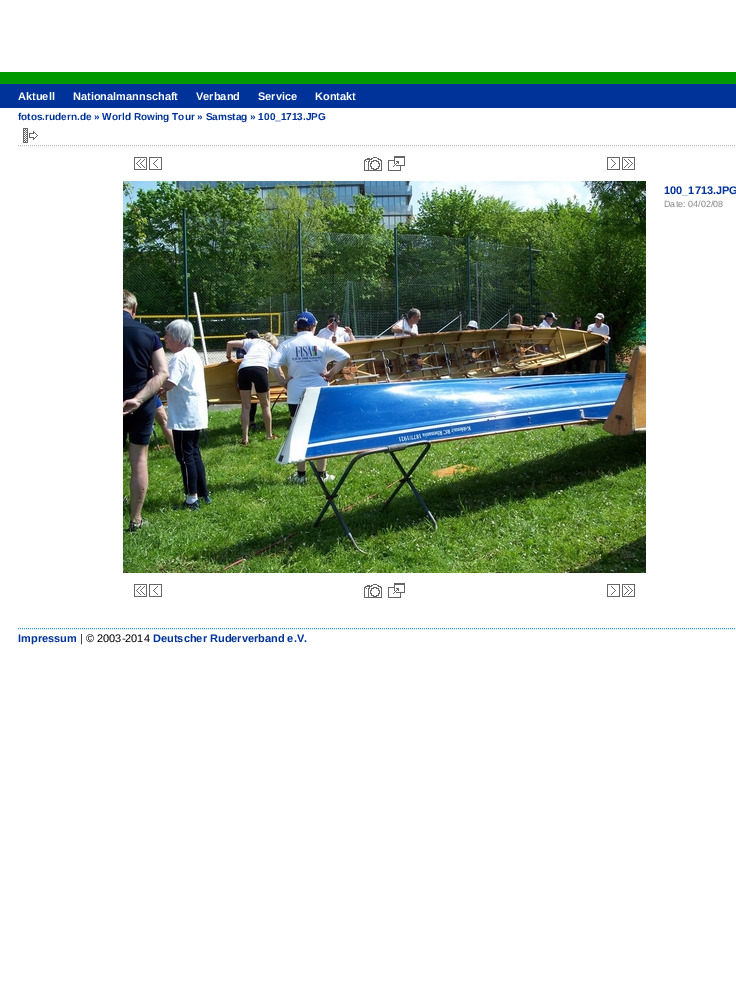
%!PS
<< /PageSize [736 996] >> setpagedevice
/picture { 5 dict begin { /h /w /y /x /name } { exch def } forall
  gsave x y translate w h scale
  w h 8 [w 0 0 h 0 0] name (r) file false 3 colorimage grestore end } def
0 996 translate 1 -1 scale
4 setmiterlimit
1 setgray
0 0 736 996 rectfill
0 0.2 0.6 setrgbcolor
0 84 736 24 rectfill
0 0.6 0 setrgbcolor
0 72 736 12 rectfill
/LiberationSans-Bold [11 0 0 -11 0 0] selectfont
1 setgray
18 100 moveto (Aktuell) show
73 100 moveto (Nationalmannschaft) show
196 100 moveto (Verband) show
258 100 moveto (Service) show
315 100 moveto (Kontakt) show
/LiberationSans-Bold [10 0 0 -10 0 0] selectfont
0 0.2 0.6 setrgbcolor
18 120 moveto (fotos.rudern.de » World Rowing Tour » Samstag » 100_1713.JPG) show
0.753 setgray
[1 1] 0 setdash
newpath 18 145.5 moveto 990 145.5 lineto stroke
(img1.rgb) 23 128 15 15 picture
(img2.rgb) 134 157 13 13 picture
(img3.rgb) 149 157 13 13 picture
(img4.rgb) 364 157 18 14 picture
(img5.rgb) 388 156 17 15 picture
(img6.rgb) 607 157 13 13 picture
(img7.rgb) 622 157 13 13 picture
(img8.rgb) 123 181 523 392 picture
/LiberationSans-Bold [11 0 0 -11 0 0] selectfont
0 0.2 0.6 setrgbcolor
664 194 moveto (100_1713.JPG) show
/LiberationSans-Regular [9 0 0 -9 0 0] selectfont
0.533 setgray
664 207 moveto (Date: 04/02/08) show
(img2.rgb) 134 584 13 13 picture
(img3.rgb) 149 584 13 13 picture
(img4.rgb) 364 584 18 14 picture
(img5.rgb) 388 583 17 15 picture
(img6.rgb) 607 584 13 13 picture
(img7.rgb) 622 584 13 13 picture
0.2 0.6 0.8 setrgbcolor
newpath 18 628.5 moveto 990 628.5 lineto stroke
/LiberationSans-Bold [11 0 0 -11 0 0] selectfont
0 0.2 0.6 setrgbcolor
18 642 moveto (Impressum) show
/LiberationSans-Regular [11 0 0 -11 0 0] selectfont
0 setgray
80 642 moveto (| © 2003-2014) show
/LiberationSans-Bold [11 0 0 -11 0 0] selectfont
0 0.2 0.6 setrgbcolor
153 642 moveto (Deutscher Ruderverband e.V.) show
showpage
